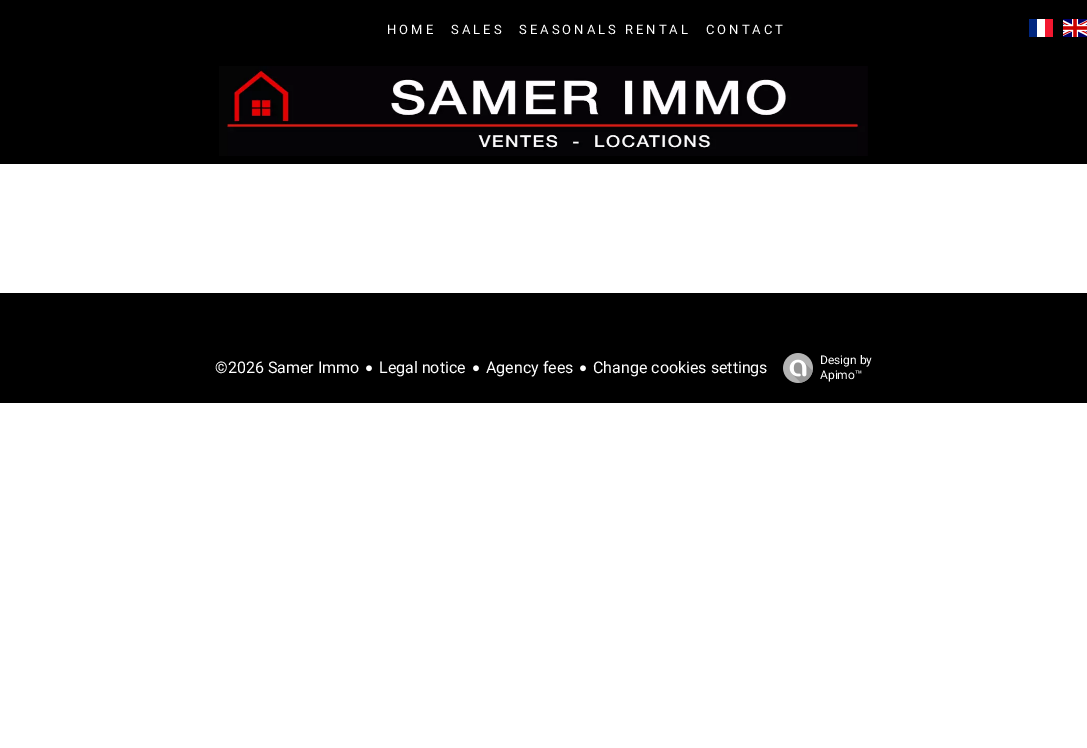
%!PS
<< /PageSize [1087 748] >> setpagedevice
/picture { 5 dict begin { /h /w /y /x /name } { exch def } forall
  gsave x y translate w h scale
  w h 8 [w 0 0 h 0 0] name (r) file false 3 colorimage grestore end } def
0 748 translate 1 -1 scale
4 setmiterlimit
1 setgray
0 0 1087 748 rectfill
0 setgray
0 0 1087 164 rectfill
/Roboto-Regular [13 0 0 -13 0 0] selectfont
1 setgray
387 34 moveto 3 0 (HOME) ashow
451 34 moveto 3 0 (SALES) ashow
519 34 moveto 3 0 (SEASONALS RENTAL) ashow
706 34 moveto 3 0 (CONTACT) ashow
1037 19 8 18 rectfill
0 0.149 0.498 setrgbcolor
1029 19 8 18 rectfill
0.953 0.094 0.188 setrgbcolor
1045 19 8 18 rectfill
(img1.rgb) 1063 19 24 18 picture
(img2.rgb) 219 66 649 90 picture
0 setgray
0 293 1087 110 rectfill
/Roboto-Regular [16 0 0 -16 0 0] selectfont
1 setgray
215 373 moveto (©2026 Samer Immo) show
(img3.rgb) 366 365 6 7 picture
379 373 moveto (Legal notice) show
(img3.rgb) 473 365 6 7 picture
486 373 moveto (Agency fees) show
(img3.rgb) 580 365 6 7 picture
593 373 moveto (Change cookies settings) show
(img4.rgb) 783 353 30 30 picture
/Roboto-Regular [12 0 0 -12 0 0] selectfont
820 364 moveto (Design by) show
820 379 moveto (Apimo™) show
showpage
